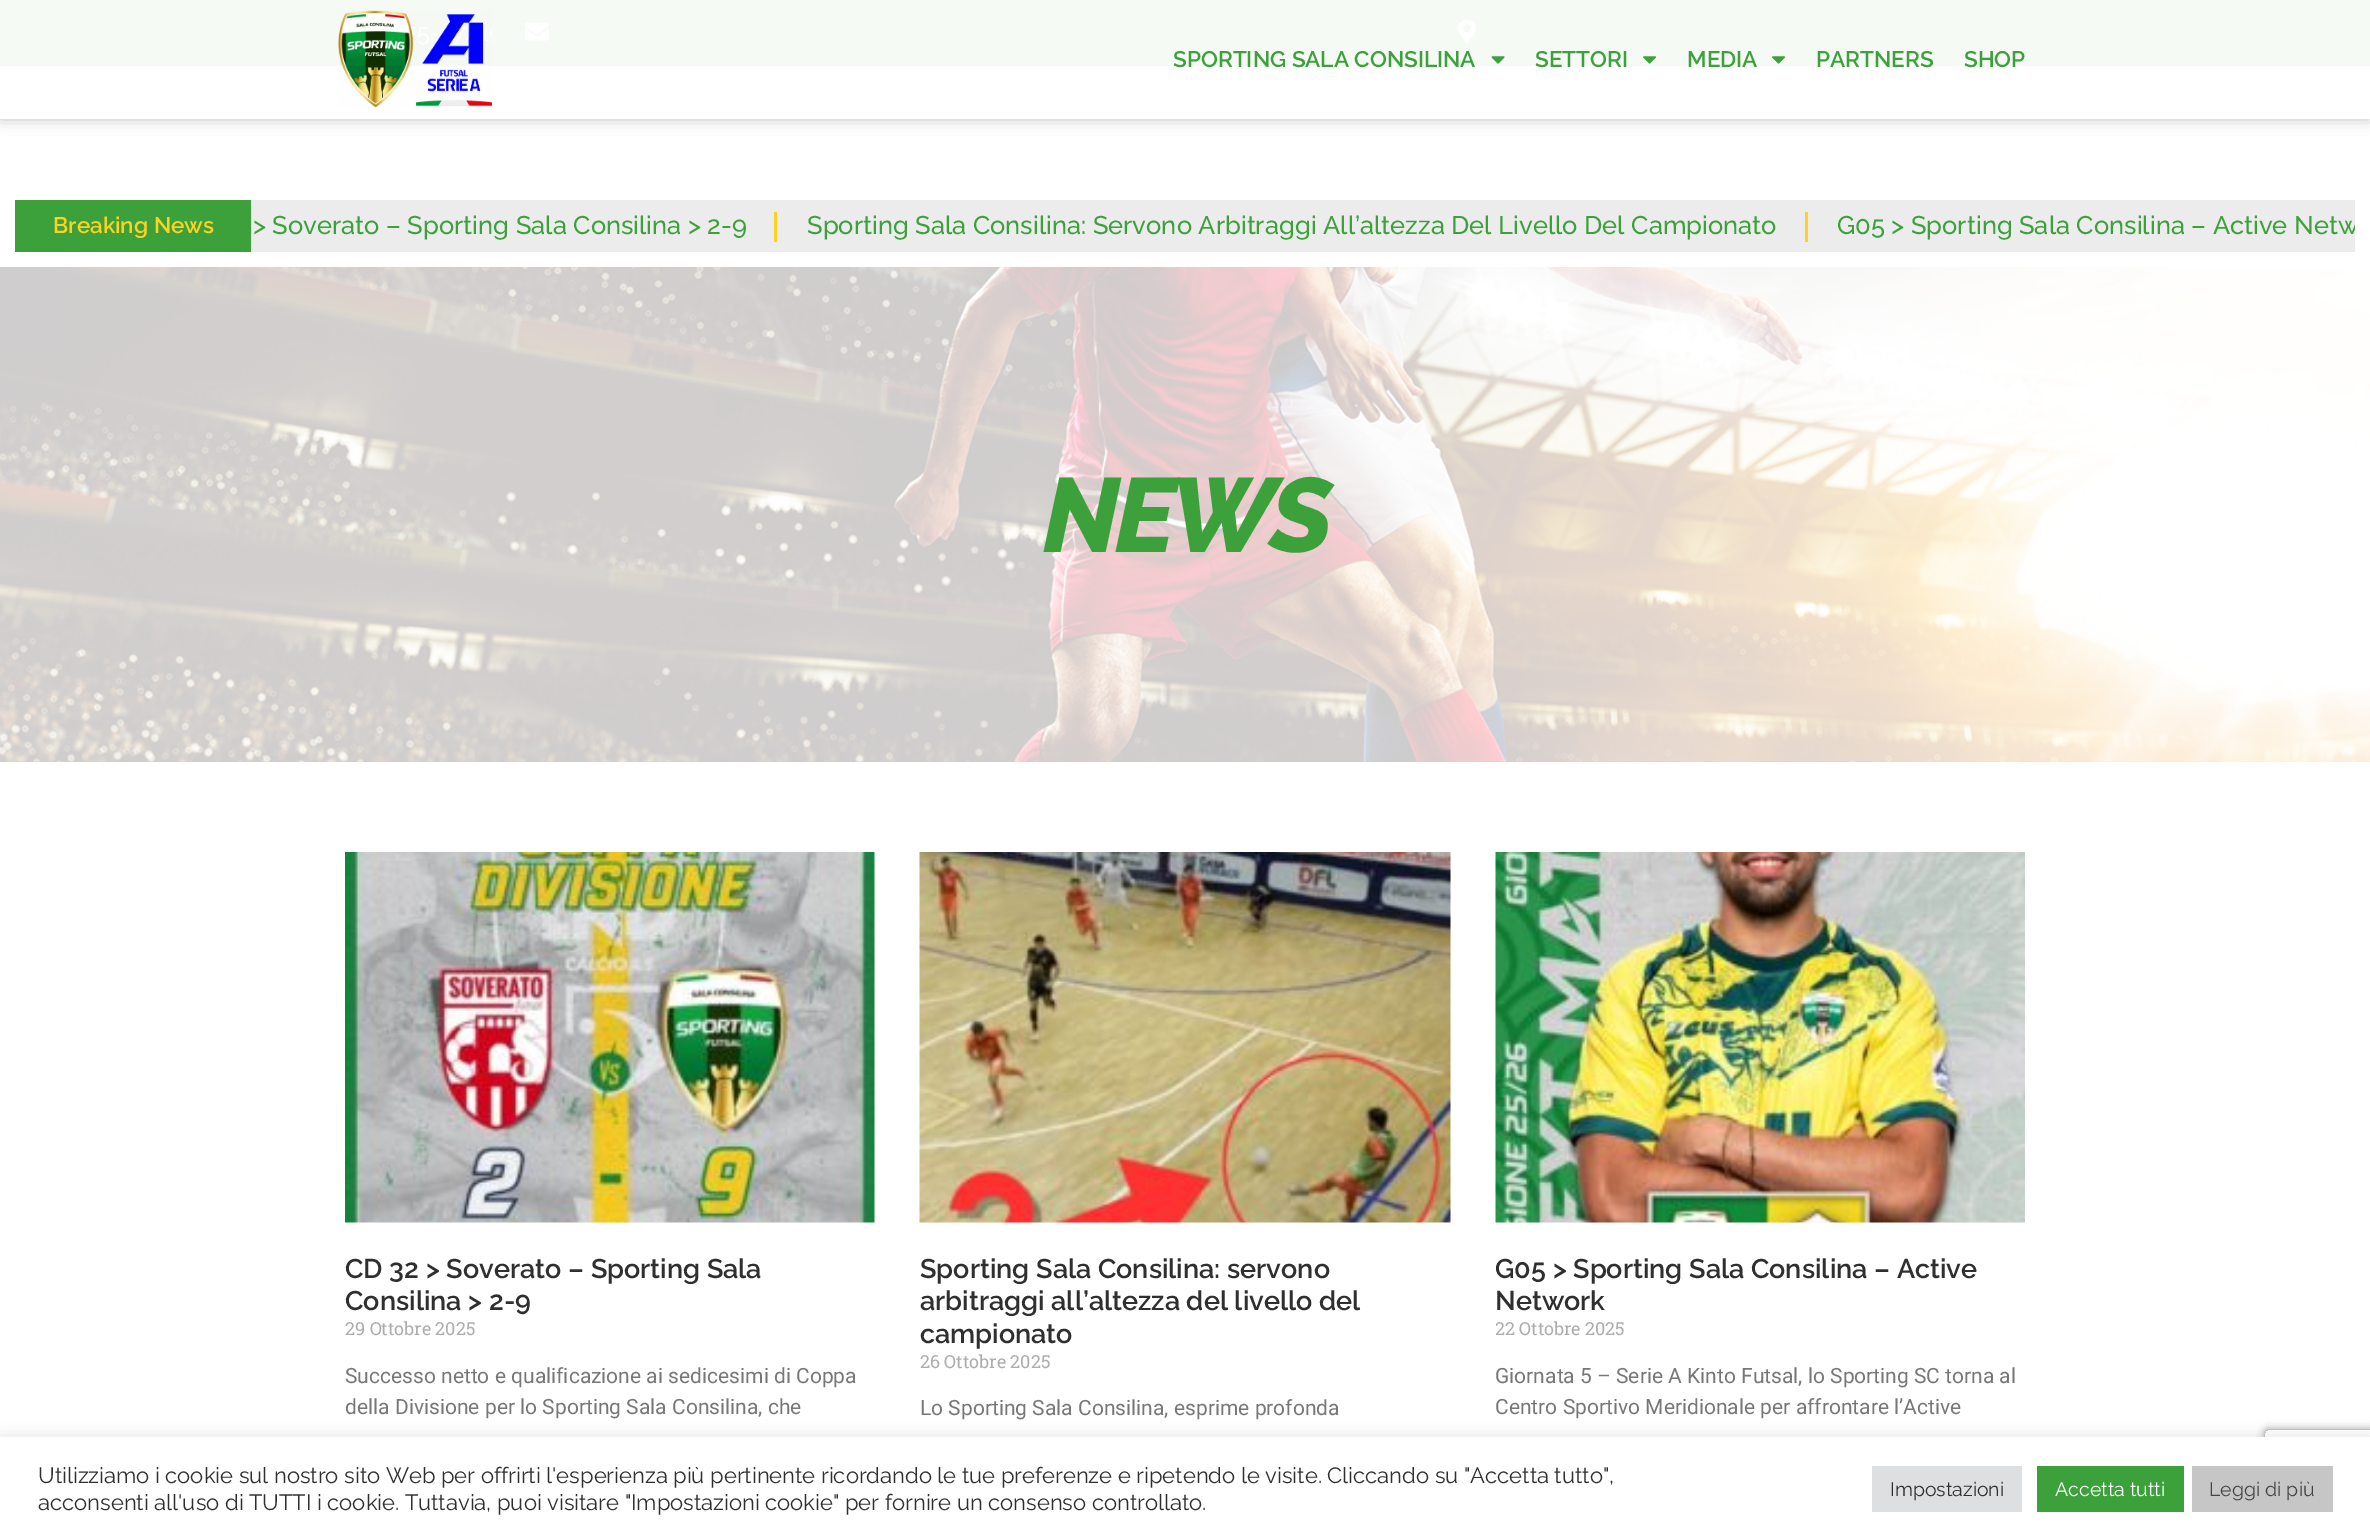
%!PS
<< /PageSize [2370 1540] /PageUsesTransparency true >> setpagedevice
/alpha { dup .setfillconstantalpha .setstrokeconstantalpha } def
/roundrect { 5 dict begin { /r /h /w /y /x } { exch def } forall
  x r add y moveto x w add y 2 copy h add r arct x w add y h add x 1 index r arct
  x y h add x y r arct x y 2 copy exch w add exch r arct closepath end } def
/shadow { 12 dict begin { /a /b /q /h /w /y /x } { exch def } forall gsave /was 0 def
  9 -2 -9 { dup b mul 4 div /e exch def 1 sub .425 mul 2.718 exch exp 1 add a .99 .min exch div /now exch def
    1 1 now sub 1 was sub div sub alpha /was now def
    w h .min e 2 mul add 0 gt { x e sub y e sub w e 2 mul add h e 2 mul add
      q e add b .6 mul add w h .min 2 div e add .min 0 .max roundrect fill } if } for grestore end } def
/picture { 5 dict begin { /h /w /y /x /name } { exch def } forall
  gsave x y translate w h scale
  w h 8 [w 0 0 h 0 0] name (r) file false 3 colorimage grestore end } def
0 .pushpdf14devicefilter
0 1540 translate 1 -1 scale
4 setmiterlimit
1 setgray
0 0 2370 1540 rectfill
0.235 0.631 0.231 setrgbcolor
0 0 2370 66 rectfill
(img1.rgb) 525 22 24 19 picture
(img2.rgb) 1458 19 18 25 picture
gsave
newpath 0 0 moveto 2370 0 lineto 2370 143 lineto 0 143 lineto closepath 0 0 moveto 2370 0 lineto 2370 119 lineto 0 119 lineto closepath eoclip newpath
0 setgray
0 0 2370 119 0 7.5 0.23 shadow
grestore
0.95 alpha
1 setgray
0 0 2370 119 rectfill
1 alpha
(img3.rgb) 338 10 154 98 picture
/Raleway-SemiBold [22.5 0 0 -22.5 0 0] selectfont
0.235 0.631 0.231 setrgbcolor
1173 67 moveto (SPORTING SALA CONSILINA) show
(img4.rgb) 1491 56 14 8 picture
1535 67 moveto (SETTORI) show
(img5.rgb) 1643 56 13 8 picture
1687 67 moveto (MEDIA) show
(img5.rgb) 1772 56 13 8 picture
1816 67 moveto (PARTNERS) show
1964 67 moveto (SHOP) show
0.925 0.925 0.929 setrgbcolor
251 200 2104 52 rectfill
0.235 0.631 0.231 setrgbcolor
15 200 236 52 rectfill
1 0.824 0.122 setrgbcolor
53 233 moveto (Breaking News) show
/Raleway-Medium [25.5 0 0 -25.5 0 0] selectfont
0.235 0.631 0.231 setrgbcolor
253 234 moveto (> Soverato – Sporting Sala Consilina > 2-9) show
1 0.824 0.122 setrgbcolor
774 212 3 30 rectfill
0.235 0.631 0.231 setrgbcolor
807 234 moveto (Sporting Sala Consilina: Servono Arbitraggi All’altezza Del Livello Del Campionato) show
1 0.824 0.122 setrgbcolor
1805 212 3 30 rectfill
gsave
251 200 2104 52 rectclip
0.235 0.631 0.231 setrgbcolor
1837 234 moveto (G05 > Sporting Sala Consilina – Active Netw) show
grestore
(img6.rgb) 0 267 2370 495 picture
/Raleway-ExtraBoldItalic [105 0 0 -105 0 0] selectfont
0.235 0.631 0.231 setrgbcolor
1043 552 moveto -5 0 (NEWS) ashow
(img7.rgb) 345 852 530 371 picture
/Raleway-SemiBold [27 0 0 -27 0 0] selectfont
0.184 setgray
345 1278 moveto (CD 32 > Soverato – Sporting Sala) show
345 1310 moveto (Consilina > 2-9) show
/RobotoSlab-Regular [18 0 0 -18 0 0] selectfont
0.678 setgray
345 1335 moveto (29 Ottobre 2025) show
/Roboto-Regular [21 0 0 -21 0 0] selectfont
0.467 setgray
345 1383 moveto (Successo netto e qualificazione ai sedicesimi di Coppa) show
345 1414 moveto (della Divisione per lo Sporting Sala Consilina, che) show
(img8.rgb) 919 852 532 371 picture
/Raleway-SemiBold [27 0 0 -27 0 0] selectfont
0.184 setgray
920 1278 moveto (Sporting Sala Consilina: servono) show
920 1310 moveto (arbitraggi all’altezza del livello del) show
920 1343 moveto (campionato) show
/RobotoSlab-Regular [18 0 0 -18 0 0] selectfont
0.678 setgray
920 1368 moveto (26 Ottobre 2025) show
/Roboto-Regular [21 0 0 -21 0 0] selectfont
0.467 setgray
920 1415 moveto (Lo Sporting Sala Consilina, esprime profonda) show
(img9.rgb) 1495 852 530 371 picture
/Raleway-SemiBold [27 0 0 -27 0 0] selectfont
0.184 setgray
1495 1278 moveto (G05 > Sporting Sala Consilina – Active) show
1495 1310 moveto (Network) show
gsave
1496 852 529 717 rectclip
/RobotoSlab-Regular [18 0 0 -18 0 0] selectfont
0.678 setgray
1495 1335 moveto (22 Ottobre 2025) show
grestore
/Roboto-Regular [21 0 0 -21 0 0] selectfont
0.467 setgray
1495 1383 moveto (Giornata 5 – Serie A Kinto Futsal, lo Sporting SC torna al) show
1495 1414 moveto (Centro Sportivo Meridionale per affrontare l’Active) show
gsave
newpath 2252 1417 moveto 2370 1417 lineto 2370 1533 lineto 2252 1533 lineto closepath 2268 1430 moveto 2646 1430 lineto 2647.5 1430 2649 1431.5 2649 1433 curveto 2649 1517 lineto 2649 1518.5 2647.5 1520 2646 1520 curveto 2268 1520 lineto 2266.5 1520 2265 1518.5 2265 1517 curveto 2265 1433 lineto 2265 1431.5 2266.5 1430 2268 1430 curveto closepath eoclip newpath
0.502 setgray
2265 1430 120 90 3 4 1 shadow
grestore
0.675 0.671 0.671 setrgbcolor
0 1436 2370 103 0 7.5 0.3 shadow
1 setgray
0 1437 2370 103 rectfill
/Raleway-Regular [22 0 0 -22 0 0] selectfont
0.184 setgray
38 1483 moveto (Utilizziamo i cookie sul nostro sito Web per offrirti l'esperienza più pertinente ricordando le tue preferenze e ripetendo le visite. Cliccando su "Accetta tutto",) show
38 1510 moveto (acconsenti all'uso di TUTTI i cookie. Tuttavia, puoi visitare "Impostazioni cookie" per fornire un consenso controllato.) show
0.871 0.875 0.878 setrgbcolor
1872 1466 150 46 rectfill
/Raleway-Regular [19.5 0 0 -19.5 0 0] selectfont
0.184 setgray
1890 1496 moveto (Impostazioni) show
0.235 0.631 0.231 setrgbcolor
2037 1466 147 46 rectfill
1 setgray
2055 1496 moveto (Accetta tutti) show
0.776 setgray
2192 1466 141 46 rectfill
0.267 setgray
2209 1496 moveto (Leggi di più) show
.poppdf14devicefilter showpage
